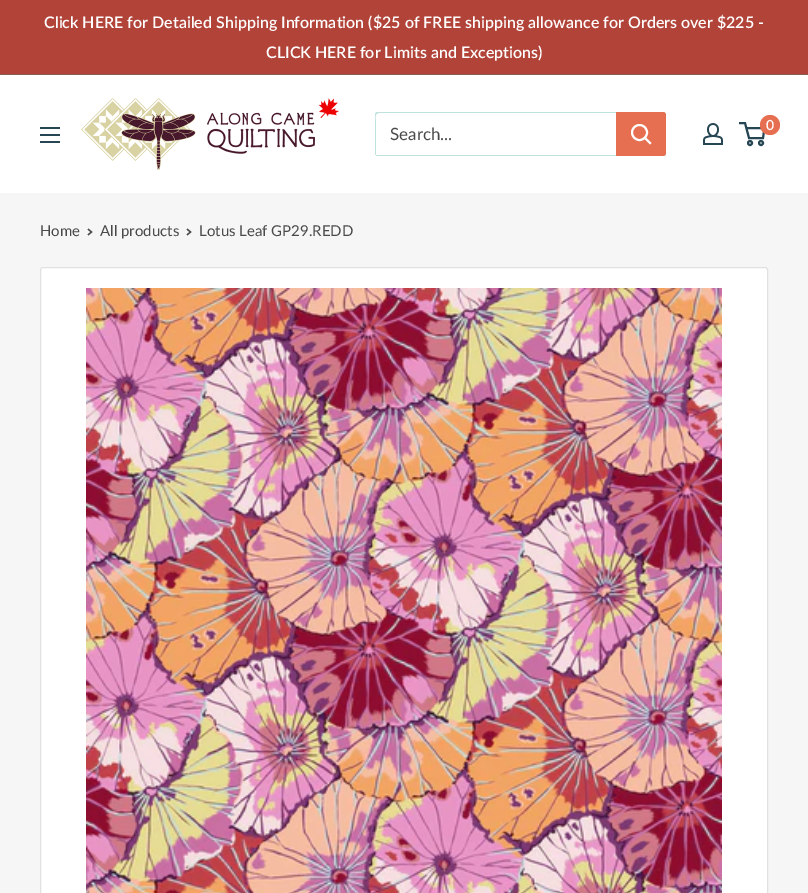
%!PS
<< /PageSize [808 893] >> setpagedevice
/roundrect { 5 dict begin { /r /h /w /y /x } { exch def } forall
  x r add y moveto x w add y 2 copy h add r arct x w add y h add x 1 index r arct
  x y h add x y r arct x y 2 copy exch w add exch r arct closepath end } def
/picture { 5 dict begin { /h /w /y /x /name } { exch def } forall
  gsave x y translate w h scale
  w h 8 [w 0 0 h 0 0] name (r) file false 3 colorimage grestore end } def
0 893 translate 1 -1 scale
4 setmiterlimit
0.965 setgray
0 0 808 893 rectfill
0.694 0.263 0.22 setrgbcolor
0 0 808 74 rectfill
0.537 0.369 0.322 setrgbcolor
0 74 808 1 rectfill
/Lato-SemiBold [16 0 0 -16 0 0] selectfont
1 setgray
44 28 moveto (Click HERE for Detailed Shipping Information \($25 of FREE shipping allowance for Orders over $225 -) show
266 58 moveto (CLICK HERE for Limits and Exceptions\)) show
0 75 808 118 rectfill
(img1.rgb) 81 98 258 72 picture
(img2.rgb) 703 123 20 22 picture
0.149 0.275 0.325 setrgbcolor
2 setlinewidth
newpath 750 143 2 0 360 arc closepath stroke
newpath 761 143 2 0 360 arc closepath stroke
newpath 746.5 128 moveto 764.5 128 lineto 763 138 lineto 749 138 lineto 745 123 lineto 739 123 lineto stroke
0.906 0.435 0.318 setrgbcolor
newpath 770 125 10 0 360 arc closepath fill
/Lato-SemiBold [14 0 0 -14 0 0] selectfont
1 setgray
766 130 moveto (0) show
(img3.rgb) 40 127 20 16 picture
0.749 0.886 0.867 setrgbcolor
newpath 376 155 moveto 376 156 377 156 378 156 curveto 663 156 lineto 665 156 666 155 666 153 curveto 666 115 lineto 666 114 666 113 665 113 curveto 665 146 lineto 665 148 667 155 662 155 curveto closepath fill
newpath 379 113 moveto 665 113 lineto 665 112 664 112 663 112 curveto 378 112 lineto 376 112 375 113 375 115 curveto 375 153 lineto 375 154 375 155 376 155 curveto 376 122 lineto 376 120 374 113 379 113 curveto closepath fill
/Lato-Regular [17 0 0 -17 0 0] selectfont
0.29 setgray
390 140 moveto (Search...) show
0.906 0.435 0.318 setrgbcolor
newpath 616 112 moveto 663 112 lineto 664.5 112 666 113.5 666 115 curveto 666 153 lineto 666 154.5 664.5 156 663 156 curveto 616 156 lineto closepath fill
1 setgray
2 setlinecap
newpath 650 143 moveto 645 138 lineto stroke
0 setlinecap
newpath 639.5 132.5 7.5 0 360 arc closepath stroke
/Lato-Regular [15 0 0 -15 0 0] selectfont
0.29 setgray
40 236 moveto (Home) show
1.3 setlinewidth
2 setlinecap
newpath 88.5 229.5 moveto 91.5 232 lineto 88.5 234.5 lineto stroke
100 236 moveto (All products) show
newpath 187.5 229.5 moveto 190.5 232 lineto 187.5 234.5 lineto stroke
199 236 moveto (Lotus Leaf GP29.REDD) show
1 setgray
40.5 267.5 727 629 2.5 roundrect gsave fill grestore
0.882 setgray
1 setlinewidth
0 setlinecap
stroke
(img4.rgb) 86 288 636 605 picture
showpage
